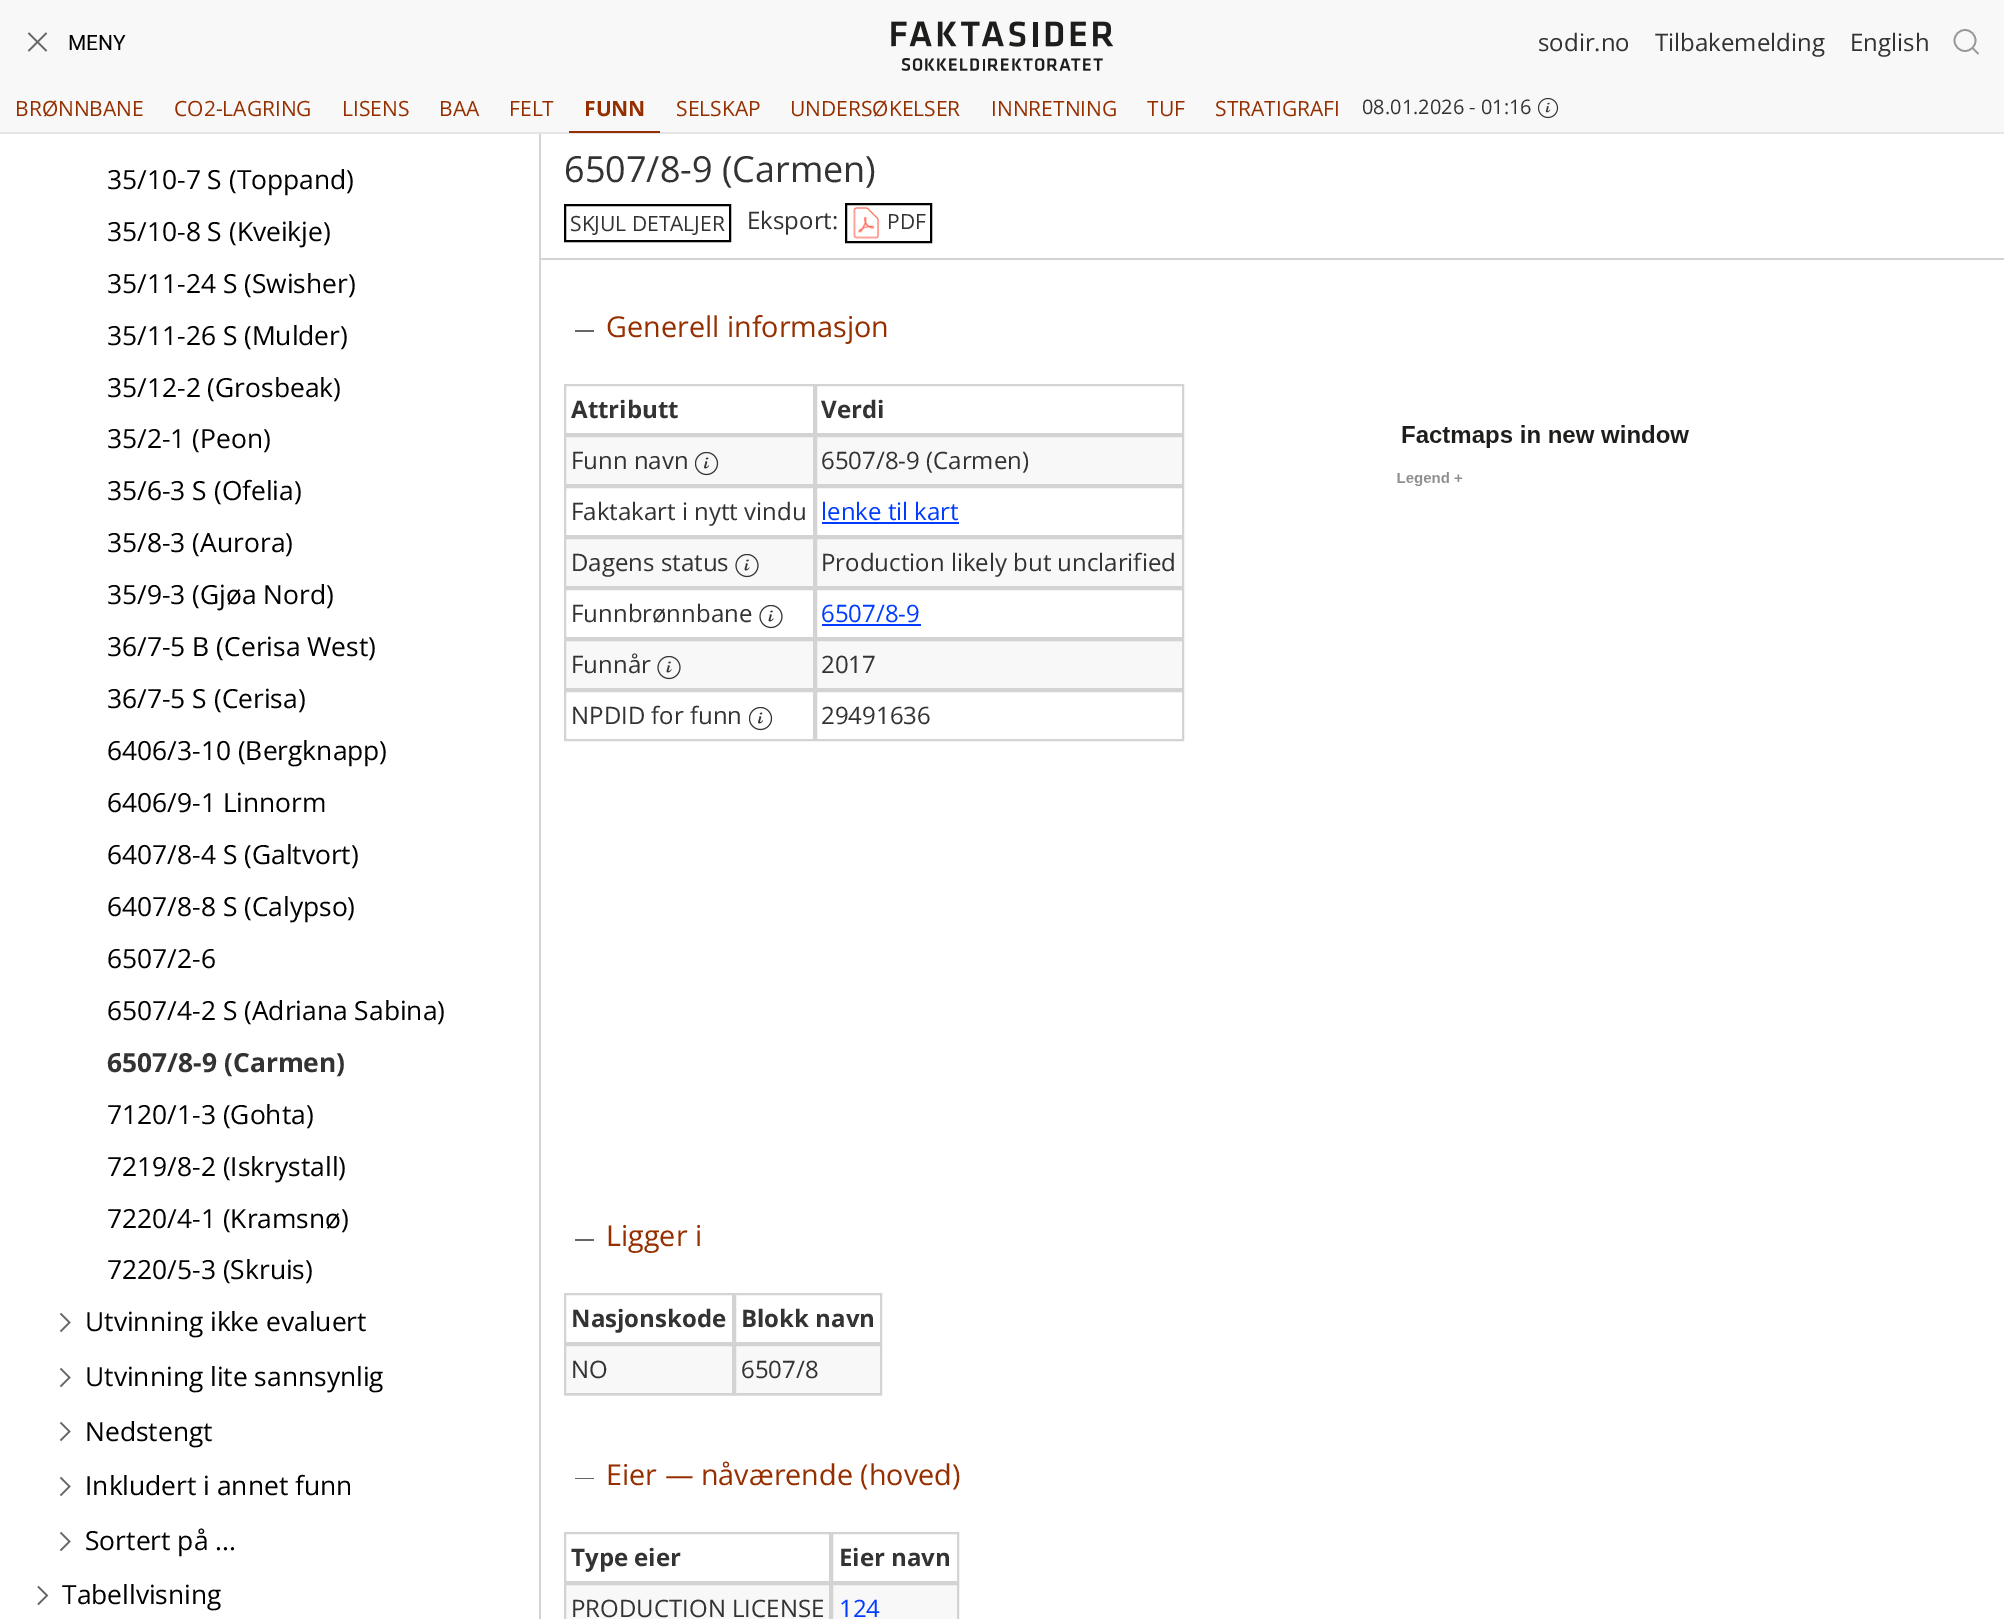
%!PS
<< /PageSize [2004 1619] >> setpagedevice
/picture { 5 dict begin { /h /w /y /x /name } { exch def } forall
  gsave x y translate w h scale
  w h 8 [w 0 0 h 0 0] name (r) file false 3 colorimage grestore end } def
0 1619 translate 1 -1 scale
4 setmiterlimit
1 setgray
0 0 2004 1619 rectfill
0.898 setgray
0 132 2004 2 rectfill
0.973 setgray
0 0 2004 132 rectfill
0.4 setgray
1.6 setlinewidth
newpath 46.5 51 moveto 28.5 33 lineto 46.5 33 moveto 28.5 51 lineto stroke
/Roboto-Regular [21 0 0 -21 0 0] selectfont
0 setgray
68 50 moveto (MENY) show
(img1.rgb) 891 21 223 50 picture
/OpenSans-Regular [24 0 0 -24 0 0] selectfont
0.2 setgray
1538 51 moveto (sodir.no) show
1655 51 moveto (Tilbakemelding) show
1850 51 moveto (English) show
0.6 setgray
1.7 setlinewidth
newpath 1965 40.5 10.5 0 360 arc closepath stroke
newpath 1972.5 48 moveto 1978.5 54 lineto closepath stroke
/OpenSans-Regular [21 0 0 -21 0 0] selectfont
0.588 0.184 0 setrgbcolor
15 116 moveto (BRØNNBANE) show
174 116 moveto (CO2-LAGRING) show
342 116 moveto (LISENS) show
439 116 moveto (BAA) show
509 116 moveto (FELT) show
569 131 91 2 rectfill
/OpenSans-Bold [21 0 0 -21 0 0] selectfont
584 116 moveto (FUNN) show
/OpenSans-Regular [21 0 0 -21 0 0] selectfont
676 116 moveto (SELSKAP) show
790 116 moveto (UNDERSØKELSER) show
991 116 moveto (INNRETNING) show
1147 116 moveto (TUF) show
1215 116 moveto (STRATIGRAFI) show
/OpenSans-Regular [20 0 0 -20 0 0] selectfont
0.2 setgray
1362 114 moveto (08.01.2026 - 01:16) show
(img2.rgb) 1538 98 21 21 picture
0.827 setgray
539 134 2 1485 rectfill
/OpenSans-Regular [26.4 0 0 -26.4 0 0] selectfont
0 setgray
107 189 moveto (35/10-7 S \(Toppand\)) show
107 241 moveto (35/10-8 S \(Kveikje\)) show
107 293 moveto (35/11-24 S \(Swisher\)) show
107 345 moveto (35/11-26 S \(Mulder\)) show
107 397 moveto (35/12-2 \(Grosbeak\)) show
107 448 moveto (35/2-1 \(Peon\)) show
107 500 moveto (35/6-3 S \(Ofelia\)) show
107 552 moveto (35/8-3 \(Aurora\)) show
107 604 moveto (35/9-3 \(Gjøa Nord\)) show
107 656 moveto (36/7-5 B \(Cerisa West\)) show
107 708 moveto (36/7-5 S \(Cerisa\)) show
107 760 moveto (6406/3-10 \(Bergknapp\)) show
107 812 moveto (6406/9-1 Linnorm) show
107 864 moveto (6407/8-4 S \(Galtvort\)) show
107 916 moveto (6407/8-8 S \(Calypso\)) show
107 968 moveto (6507/2-6) show
107 1020 moveto (6507/4-2 S \(Adriana Sabina\)) show
/OpenSans-Bold [26.4 0 0 -26.4 0 0] selectfont
0.2 setgray
107 1072 moveto (6507/8-9 \(Carmen\)) show
/OpenSans-Regular [26.4 0 0 -26.4 0 0] selectfont
0 setgray
107 1124 moveto (7120/1-3 \(Gohta\)) show
107 1176 moveto (7219/8-2 \(Iskrystall\)) show
107 1228 moveto (7220/4-1 \(Kramsnø\)) show
107 1279 moveto (7220/5-3 \(Skruis\)) show
0.4 setgray
newpath 60.5 1331.5 moveto 69.5 1322.5 lineto 60.5 1313.5 lineto stroke
0 setgray
85 1331 moveto (Utvinning ikke evaluert) show
0.4 setgray
newpath 60.5 1386.5 moveto 69.5 1377.5 lineto 60.5 1368.5 lineto stroke
0 setgray
85 1386 moveto (Utvinning lite sannsynlig) show
0.4 setgray
newpath 60.5 1440.5 moveto 69.5 1431.5 lineto 60.5 1422.5 lineto stroke
0 setgray
85 1441 moveto (Nedstengt) show
0.4 setgray
newpath 60.5 1495.5 moveto 69.5 1486.5 lineto 60.5 1477.5 lineto stroke
0 setgray
85 1495 moveto (Inkludert i annet funn) show
0.4 setgray
newpath 60.5 1550.5 moveto 69.5 1541.5 lineto 60.5 1532.5 lineto stroke
0 setgray
85 1550 moveto (Sortert på ...) show
0.4 setgray
newpath 38 1604.5 moveto 47 1595.5 lineto 38 1586.5 lineto stroke
0 setgray
62 1604 moveto (Tabellvisning) show
0.827 setgray
540 258 1464 2 rectfill
/OpenSans-Regular [36 0 0 -36 0 0] selectfont
0.2 setgray
564 182 moveto (6507/8-9 \(Carmen\)) show
0 setgray
2 setlinewidth
565 205 165 36 rectstroke
/OpenSans-Regular [21 0 0 -21 0 0] selectfont
0.2 setgray
570 231 moveto (SKJUL DETALJER) show
/OpenSans-Regular [24 0 0 -24 0 0] selectfont
747 229 moveto (Eksport:) show
0 setgray
846 204 85 38 rectstroke
(img3.rgb) 853 207 27 32 picture
/OpenSans-Regular [21 0 0 -21 0 0] selectfont
0.2 setgray
887 229 moveto (PDF) show
0.4 setgray
575 330 19 2 rectfill
/OpenSans-Regular [28.75 0 0 -28.75 0 0] selectfont
0.588 0.184 0 setrgbcolor
606 337 moveto (Generell informasjon) show
0.827 setgray
565 385 249 49 rectstroke
/OpenSans-Bold [24 0 0 -24 0 0] selectfont
0.2 setgray
571 418 moveto (Attributt) show
0.827 setgray
816 385 367 49 rectstroke
0.2 setgray
821 418 moveto (Verdi) show
0.973 setgray
566 437 616 47 rectfill
0.827 setgray
565 436 249 49 rectstroke
/OpenSans-Regular [24 0 0 -24 0 0] selectfont
0.2 setgray
571 469 moveto (Funn navn) show
(img4.rgb) 695 452 24 24 picture
0.827 setgray
816 436 367 49 rectstroke
0.2 setgray
821 469 moveto (6507/8-9 \(Carmen\)) show
0.827 setgray
565 487 249 49 rectstroke
0.2 setgray
571 520 moveto (Faktakart i nytt vindu) show
0.827 setgray
816 487 367 49 rectstroke
0 0.235 1 setrgbcolor
821 520 moveto (lenke til kart) show
822 522 137 2 rectfill
0.973 setgray
566 539 616 47 rectfill
0.827 setgray
565 538 249 49 rectstroke
0.2 setgray
571 571 moveto (Dagens status) show
(img5.rgb) 735 554 24 24 picture
0.827 setgray
816 538 367 49 rectstroke
0.2 setgray
821 571 moveto (Production likely but unclarified) show
0.827 setgray
565 589 249 49 rectstroke
0.2 setgray
571 622 moveto (Funnbrønnbane) show
(img6.rgb) 759 605 24 24 picture
0.827 setgray
816 589 367 49 rectstroke
0 0.235 1 setrgbcolor
821 622 moveto (6507/8-9) show
822 624 99 2 rectfill
0.973 setgray
566 641 616 47 rectfill
0.827 setgray
565 640 249 49 rectstroke
0.2 setgray
571 673 moveto (Funnår) show
(img5.rgb) 657 656 24 24 picture
0.827 setgray
816 640 367 49 rectstroke
0.2 setgray
821 673 moveto (2017) show
0.827 setgray
565 691 249 49 rectstroke
0.2 setgray
571 724 moveto (NPDID for funn) show
(img7.rgb) 749 707 24 24 picture
0.827 setgray
816 691 367 49 rectstroke
0.2 setgray
821 724 moveto (29491636) show
(img8.rgb) 1397 425 292 61 picture
0.4 setgray
575 1239 19 2 rectfill
/OpenSans-Regular [28.75 0 0 -28.75 0 0] selectfont
0.588 0.184 0 setrgbcolor
606 1246 moveto (Ligger i) show
0.827 setgray
565 1294 168 49 rectstroke
/OpenSans-Bold [24 0 0 -24 0 0] selectfont
0.2 setgray
571 1327 moveto (Nasjonskode) show
0.827 setgray
735 1294 146 49 rectstroke
0.2 setgray
741 1327 moveto (Blokk navn) show
0.973 setgray
566 1346 314 47 rectfill
0.898 setgray
564 1395 318 1 rectfill
0.827 setgray
565 1345 168 49 rectstroke
/OpenSans-Regular [24 0 0 -24 0 0] selectfont
0.2 setgray
571 1378 moveto (NO) show
0.827 setgray
735 1345 146 49 rectstroke
0.2 setgray
741 1378 moveto (6507/8) show
0.4 setgray
575 1478 19 1 rectfill
/OpenSans-Regular [28.75 0 0 -28.75 0 0] selectfont
0.588 0.184 0 setrgbcolor
606 1485 moveto (Eier — nåværende \(hoved\)) show
0.827 setgray
565 1533 265 49 rectstroke
/OpenSans-Bold [24 0 0 -24 0 0] selectfont
0.2 setgray
571 1566 moveto (Type eier) show
0.827 setgray
832 1533 126 49 rectstroke
0.2 setgray
839 1566 moveto (Eier navn) show
0.973 setgray
566 1585 391 34 rectfill
0.827 setgray
565 1584 265 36 rectstroke
/OpenSans-Regular [24 0 0 -24 0 0] selectfont
0.2 setgray
571 1617 moveto (PRODUCTION LICENSE) show
0.827 setgray
832 1584 126 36 rectstroke
0 0.235 1 setrgbcolor
839 1617 moveto (124) show
showpage
